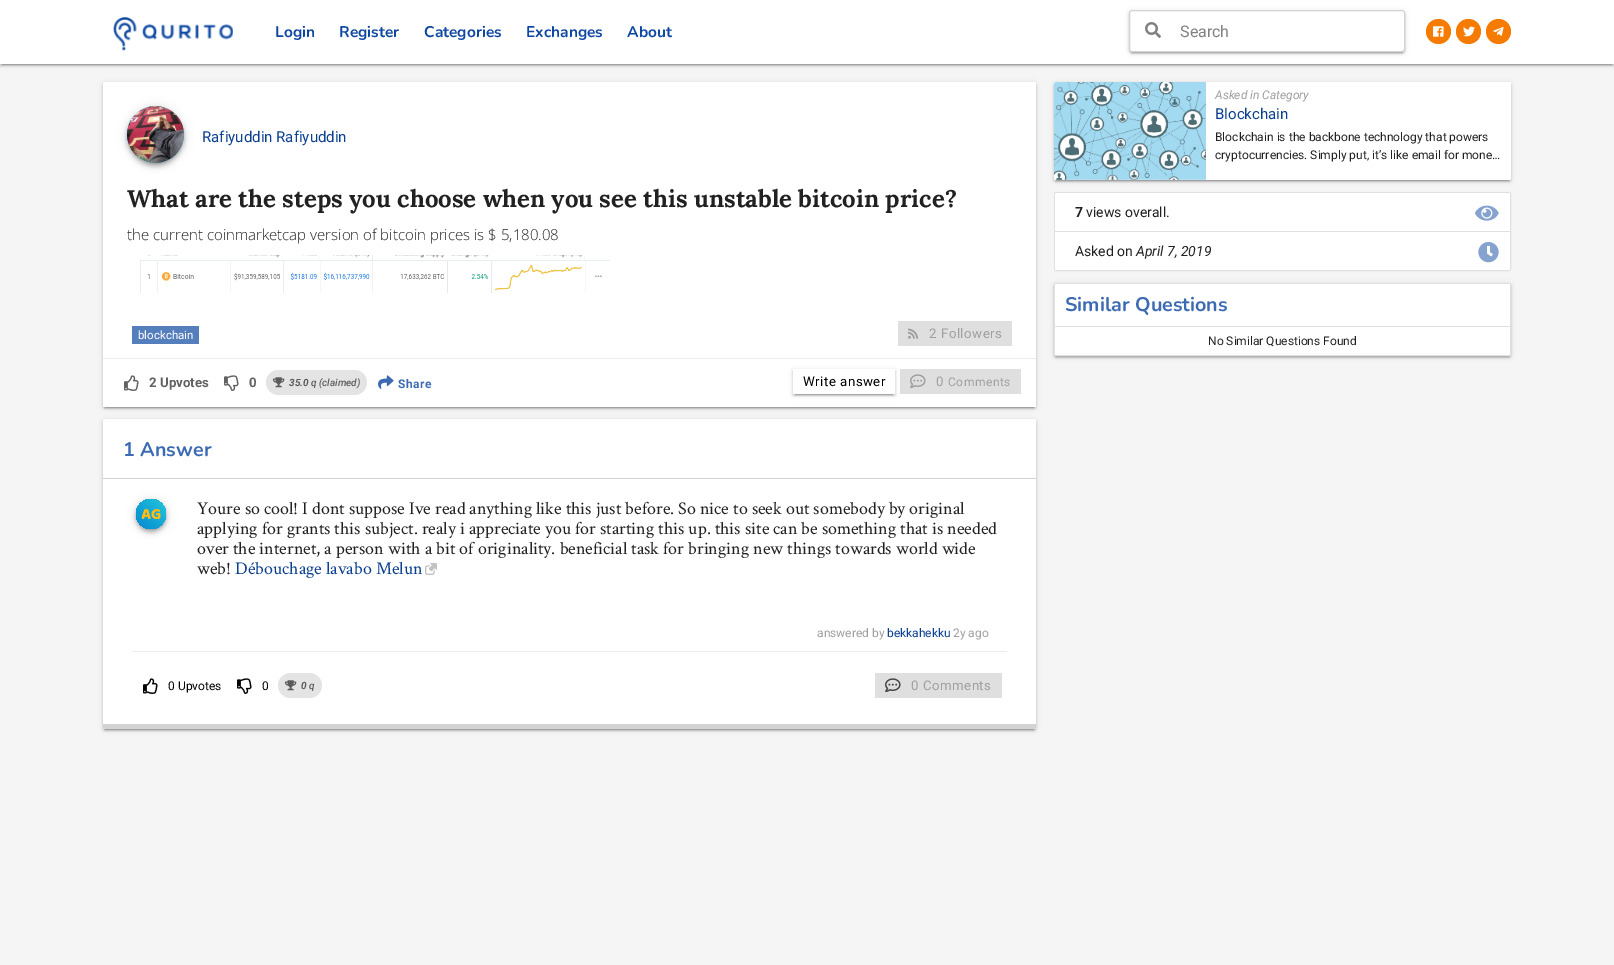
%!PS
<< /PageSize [1614 965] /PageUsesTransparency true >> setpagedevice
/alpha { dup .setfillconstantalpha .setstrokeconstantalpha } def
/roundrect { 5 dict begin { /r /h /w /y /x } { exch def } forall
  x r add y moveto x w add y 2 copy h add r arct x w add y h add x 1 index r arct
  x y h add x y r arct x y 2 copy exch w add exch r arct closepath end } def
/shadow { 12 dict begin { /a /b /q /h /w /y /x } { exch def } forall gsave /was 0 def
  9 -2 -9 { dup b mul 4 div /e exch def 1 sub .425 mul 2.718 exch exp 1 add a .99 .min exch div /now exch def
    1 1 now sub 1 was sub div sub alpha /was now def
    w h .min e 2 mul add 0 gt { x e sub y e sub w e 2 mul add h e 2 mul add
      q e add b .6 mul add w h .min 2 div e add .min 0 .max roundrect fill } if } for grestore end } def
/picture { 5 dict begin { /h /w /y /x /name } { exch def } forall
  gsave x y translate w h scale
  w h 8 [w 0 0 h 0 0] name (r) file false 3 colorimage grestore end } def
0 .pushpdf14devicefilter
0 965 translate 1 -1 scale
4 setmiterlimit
0.961 setgray
0 0 1614 965 rectfill
0 setgray
2 5 1610 60 0 0.5 0.2 shadow
0 1 1614 64 0 2.5 0.12 shadow
0 2 1614 64 0 1 0.14 shadow
1 setgray
0 0 1614 64 rectfill
(img1.rgb) 113 17 120 34 picture
/Nunito-Bold [15.5 0 0 -15.5 0 0] selectfont
0.051 0.278 0.631 setrgbcolor
275 37 moveto (Login) show
339 37 moveto (Register) show
424 37 moveto (Categories) show
526 37 moveto (Exchanges) show
627 37 moveto (About) show
gsave
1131 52 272 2 rectclip
0 setgray
1131 15 272 38 1 0.5 0.2 shadow
grestore
gsave
newpath 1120 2 moveto 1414 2 lineto 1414 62 lineto 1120 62 lineto closepath 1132 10 moveto 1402 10 lineto 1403.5 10 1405 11.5 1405 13 curveto 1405 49 lineto 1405 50.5 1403.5 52 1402 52 curveto 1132 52 lineto 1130.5 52 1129 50.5 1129 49 curveto 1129 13 lineto 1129 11.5 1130.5 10 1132 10 curveto closepath eoclip newpath
0 setgray
1129 11 276 42 3 2.5 0.12 shadow
grestore
gsave
newpath 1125 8 moveto 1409 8 lineto 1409 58 lineto 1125 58 lineto closepath 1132 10 moveto 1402 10 lineto 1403.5 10 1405 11.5 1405 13 curveto 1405 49 lineto 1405 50.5 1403.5 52 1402 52 curveto 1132 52 lineto 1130.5 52 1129 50.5 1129 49 curveto 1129 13 lineto 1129 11.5 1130.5 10 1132 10 curveto closepath eoclip newpath
0 setgray
1129 12 276 42 3 1 0.14 shadow
grestore
0.3 alpha
1 setgray
1129.5 10.5 275 41 2.5 roundrect fill
1 alpha
0.827 setgray
1129.5 10.5 275 41 2.5 roundrect stroke
(img2.rgb) 1145 22 16 16 picture
/Roboto-Regular [16 0 0 -16 0 0] selectfont
0.502 setgray
1180 37 moveto (Search) show
0.961 0.486 0 setrgbcolor
newpath 1438.5 31.5 12.5 0 360 arc closepath fill
(img3.rgb) 1433 26 11 11 picture
newpath 1468.5 31.5 12.5 0 360 arc closepath fill
(img4.rgb) 1463 26 12 11 picture
newpath 1498.5 31.5 12.5 0 360 arc closepath fill
(img5.rgb) 1493 27 11 9 picture
0 setgray
105 87 929 321 0 0.5 0.2 shadow
103 83 933 325 2 2.5 0.12 shadow
103 84 933 325 2 1 0.14 shadow
1 setgray
103 82 933 325 2 roundrect fill
0 setgray
127 107 57 57 28.5 5 0.12 shadow
127 110 57 57 28.5 2.5 0.14 shadow
128 109 55 55 27.5 2 0.3 shadow
gsave newpath 155.5 134.5 28.5 0 360 arc closepath clip newpath
<< /ShadingType 2 /ColorSpace /DeviceRGB /Coords [127 163 184 106] /Extend [true true] /Function << /FunctionType 2 /Domain [0 1] /C0 [0.008 0.533 0.82] /C1 [0.149 0.776 0.855] /N 1 >> >> shfill grestore
(img6.rgb) 127 106 57 57 picture
/Roboto-Regular [15 0 0 -15 0 0] selectfont
0.043 0.247 0.565 setrgbcolor
202 142 moveto (Rafiyuddin Rafiyuddin) show
/Lora-Bold [24 0 0 -24 0 0] selectfont
0.129 setgray
127 207 moveto (What are the steps you choose when you see this unstable bitcoin price?) show
/OpenSans-Light [15 0 0 -15 0 0] selectfont
127 240 moveto (the current coinmarketcap version of bitcoin prices is $ 5,180.08) show
(img7.rgb) 140 255 470 38 picture
0.333 0.494 0.741 setrgbcolor
132 326 67 18 rectfill
/Roboto-Regular [11.5 0 0 -11.5 0 0] selectfont
1 setgray
138 339 moveto (blockchain) show
0.875 setgray
898 321 114 25 rectfill
(img8.rgb) 908 328 10 11 picture
/Roboto-Regular [13.25 0 0 -13.25 0 0] selectfont
0.624 setgray
929 338 moveto 0.5 0 (2 Followers) ashow
1 setgray
103 405 933 2 rectfill
0.925 setgray
103 358 933 1 rectfill
(img9.rgb) 124 375 15 16 picture
/Roboto-Bold [13.25 0 0 -13.25 0 0] selectfont
0.38 setgray
149 387 moveto (2 Upvotes) show
(img10.rgb) 224 375 15 16 picture
249 387 moveto (0) show
0.894 setgray
266 370 101 25 12.5 roundrect fill
(img11.rgb) 273 377 12 11 picture
/Roboto-BoldItalic [10 0 0 -10 0 0] selectfont
0.357 setgray
289 386 moveto (35.0) show
/Roboto-MediumItalic [10 0 0 -10 0 0] selectfont
311 386 moveto (q \(claimed\)) show
(img12.rgb) 378 375 16 14 picture
/Roboto-Bold [12 0 0 -12 0 0] selectfont
0.239 0.42 0.702 setrgbcolor
398 388 moveto 0.5 0 (Share) ashow
gsave
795 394 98 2 rectclip
0 setgray
795 374 98 21 0 0.5 0.2 shadow
grestore
0.875 setgray
900 369 121 25 rectfill
gsave
newpath 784 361 moveto 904 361 lineto 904 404 lineto 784 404 lineto closepath 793 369 moveto 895 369 lineto 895 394 lineto 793 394 lineto closepath eoclip newpath
0 setgray
793 370 102 25 0 2.5 0.12 shadow
grestore
gsave
newpath 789 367 moveto 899 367 lineto 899 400 lineto 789 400 lineto closepath 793 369 moveto 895 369 lineto 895 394 lineto 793 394 lineto closepath eoclip newpath
0 setgray
793 371 102 25 0 1 0.14 shadow
grestore
/Roboto-Regular [13.25 0 0 -13.25 0 0] selectfont
0 setgray
803 386 moveto 0.5 0 (Write answer) ashow
(img13.rgb) 910 374 16 14 picture
0.624 setgray
936 386 moveto 0.5 0 (0) ashow
/Roboto-Regular [12 0 0 -12 0 0] selectfont
948 386 moveto 0.5 0 (Comments) ashow
0 setgray
105 424 929 306 0 0.5 0.2 shadow
103 420 933 310 2 2.5 0.12 shadow
103 421 933 310 2 1 0.14 shadow
1 setgray
103 419 933 310 2 roundrect fill
0.827 setgray
103 478 933 1 rectfill
/Nunito-Bold [19.75 0 0 -19.75 0 0] selectfont
0.239 0.42 0.702 setrgbcolor
123 456 moveto (1 Answer) show
1 setgray
103 479 933 250 2 roundrect fill
0.827 setgray
newpath 103 724 moveto 1036 724 lineto 1036 727 lineto 1036 728 1035 729 1034 729 curveto 105 729 lineto 104 729 103 728 103 727 curveto closepath fill
0 setgray
136 500 30 30 15 5 0.12 shadow
136 503 30 30 15 2.5 0.14 shadow
137 502 28 28 14 2 0.3 shadow
gsave newpath 151 514 15 0 360 arc closepath clip newpath
<< /ShadingType 2 /ColorSpace /DeviceRGB /Coords [136 529 166 499] /Extend [true true] /Function << /FunctionType 2 /Domain [0 1] /C0 [0.008 0.533 0.82] /C1 [0.149 0.776 0.855] /N 1 >> >> shfill grestore
(img14.rgb) 141 509 20 10 picture
/CrimsonText-Regular [18 0 0 -18 0 0] selectfont
0.129 setgray
197 514 moveto (Youre so cool! I dont suppose Ive read anything like this just before. So nice to seek out somebody by original) show
197 534 moveto (applying for grants this subject. realy i appreciate you for starting this up. this site can be something that is needed) show
197 554 moveto (over the internet, a person with a bit of originality. beneficial task for bringing new things towards world wide) show
197 574 moveto (web!) show
0.043 0.247 0.565 setrgbcolor
235 574 moveto (Débouchage lavabo Melun) show
(img15.rgb) 425 563 12 12 picture
/Roboto-Regular [12 0 0 -12 0 0] selectfont
0.624 setgray
817 637 moveto (answered by) show
0.043 0.247 0.565 setrgbcolor
887 637 moveto (bekkahekku) show
0.624 setgray
953 637 moveto (2y ago) show
0.925 setgray
132 651 875 1 rectfill
(img16.rgb) 143 678 15 16 picture
0 setgray
168 690 moveto (0 Upvotes) show
(img17.rgb) 237 678 15 16 picture
262 690 moveto (0) show
0.894 setgray
278 673 44 25 12.5 roundrect fill
(img11.rgb) 285 680 12 11 picture
/Roboto-BoldItalic [10 0 0 -10 0 0] selectfont
0.357 setgray
301 689 moveto (0) show
/Roboto-MediumItalic [10 0 0 -10 0 0] selectfont
309 689 moveto (q) show
0.875 setgray
875 673 127 25 rectfill
(img18.rgb) 885 678 16 14 picture
/Roboto-Regular [13.25 0 0 -13.25 0 0] selectfont
0.624 setgray
911 690 moveto 0.5 0 (0 Comments) ashow
0 setgray
1056 87 453 94 0 0.5 0.2 shadow
1054 83 457 98 2 2.5 0.12 shadow
1054 84 457 98 2 1 0.14 shadow
1 setgray
1054 82 457 98 2 roundrect fill
(img19.rgb) 1054 82 152 98 picture
/Roboto-Italic [12 0 0 -12 0 0] selectfont
0.624 setgray
1215 99 moveto (Asked in Category) show
/Roboto-Regular [15 0 0 -15 0 0] selectfont
0.043 0.247 0.565 setrgbcolor
1215 119 moveto (Blockchain) show
/Roboto-Regular [12 0 0 -12 0 0] selectfont
0.129 setgray
1215 141 moveto (Blockchain is the backbone technology that powers) show
1215 159 moveto (cryptocurrencies. Simply put, it’s like email for mone…) show
0.878 setgray
1054.5 192.5 456 78 1.5 roundrect stroke
1 setgray
newpath 1056 193 moveto 1509 193 lineto 1509.5 193 1510 193.5 1510 194 curveto 1510 232 lineto 1055 232 lineto 1055 194 lineto 1055 193.5 1055.5 193 1056 193 curveto closepath fill
0.878 setgray
1055 231 455 1 rectfill
/Roboto-Bold [14 0 0 -14 0 0] selectfont
0.129 setgray
1075 217 moveto (7) show
/Roboto-Regular [14 0 0 -14 0 0] selectfont
1086 217 moveto (views overall.) show
(img20.rgb) 1475 205 24 16 picture
1 setgray
newpath 1055 232 moveto 1510 232 lineto 1510 269 lineto 1510 269.5 1509.5 270 1509 270 curveto 1056 270 lineto 1055.5 270 1055 269.5 1055 269 curveto closepath fill
0.129 setgray
1075 256 moveto (Asked on) show
/Roboto-Italic [14 0 0 -14 0 0] selectfont
1136 256 moveto (April 7, 2019) show
(img21.rgb) 1478 242 21 21 picture
0 setgray
1056 288 453 69 0 0.5 0.2 shadow
1054 284 457 73 2 2.5 0.12 shadow
1054 285 457 73 2 1 0.14 shadow
0.878 setgray
1054.5 283.5 456 72 1.5 roundrect stroke
1 setgray
newpath 1056 284 moveto 1509 284 lineto 1509.5 284 1510 284.5 1510 285 curveto 1510 327 lineto 1055 327 lineto 1055 285 lineto 1055 284.5 1055.5 284 1056 284 curveto closepath fill
0.878 setgray
1055 326 455 1 rectfill
/Nunito-Bold [19.75 0 0 -19.75 0 0] selectfont
0.239 0.42 0.702 setrgbcolor
1065 311 moveto (Similar Questions) show
1 setgray
newpath 1055 327 moveto 1510 327 lineto 1510 354 lineto 1510 354.5 1509.5 355 1509 355 curveto 1056 355 lineto 1055.5 355 1055 354.5 1055 354 curveto closepath fill
/Roboto-Regular [12 0 0 -12 0 0] selectfont
0.129 setgray
1208 345 moveto (No Similar Questions Found) show
.poppdf14devicefilter showpage
